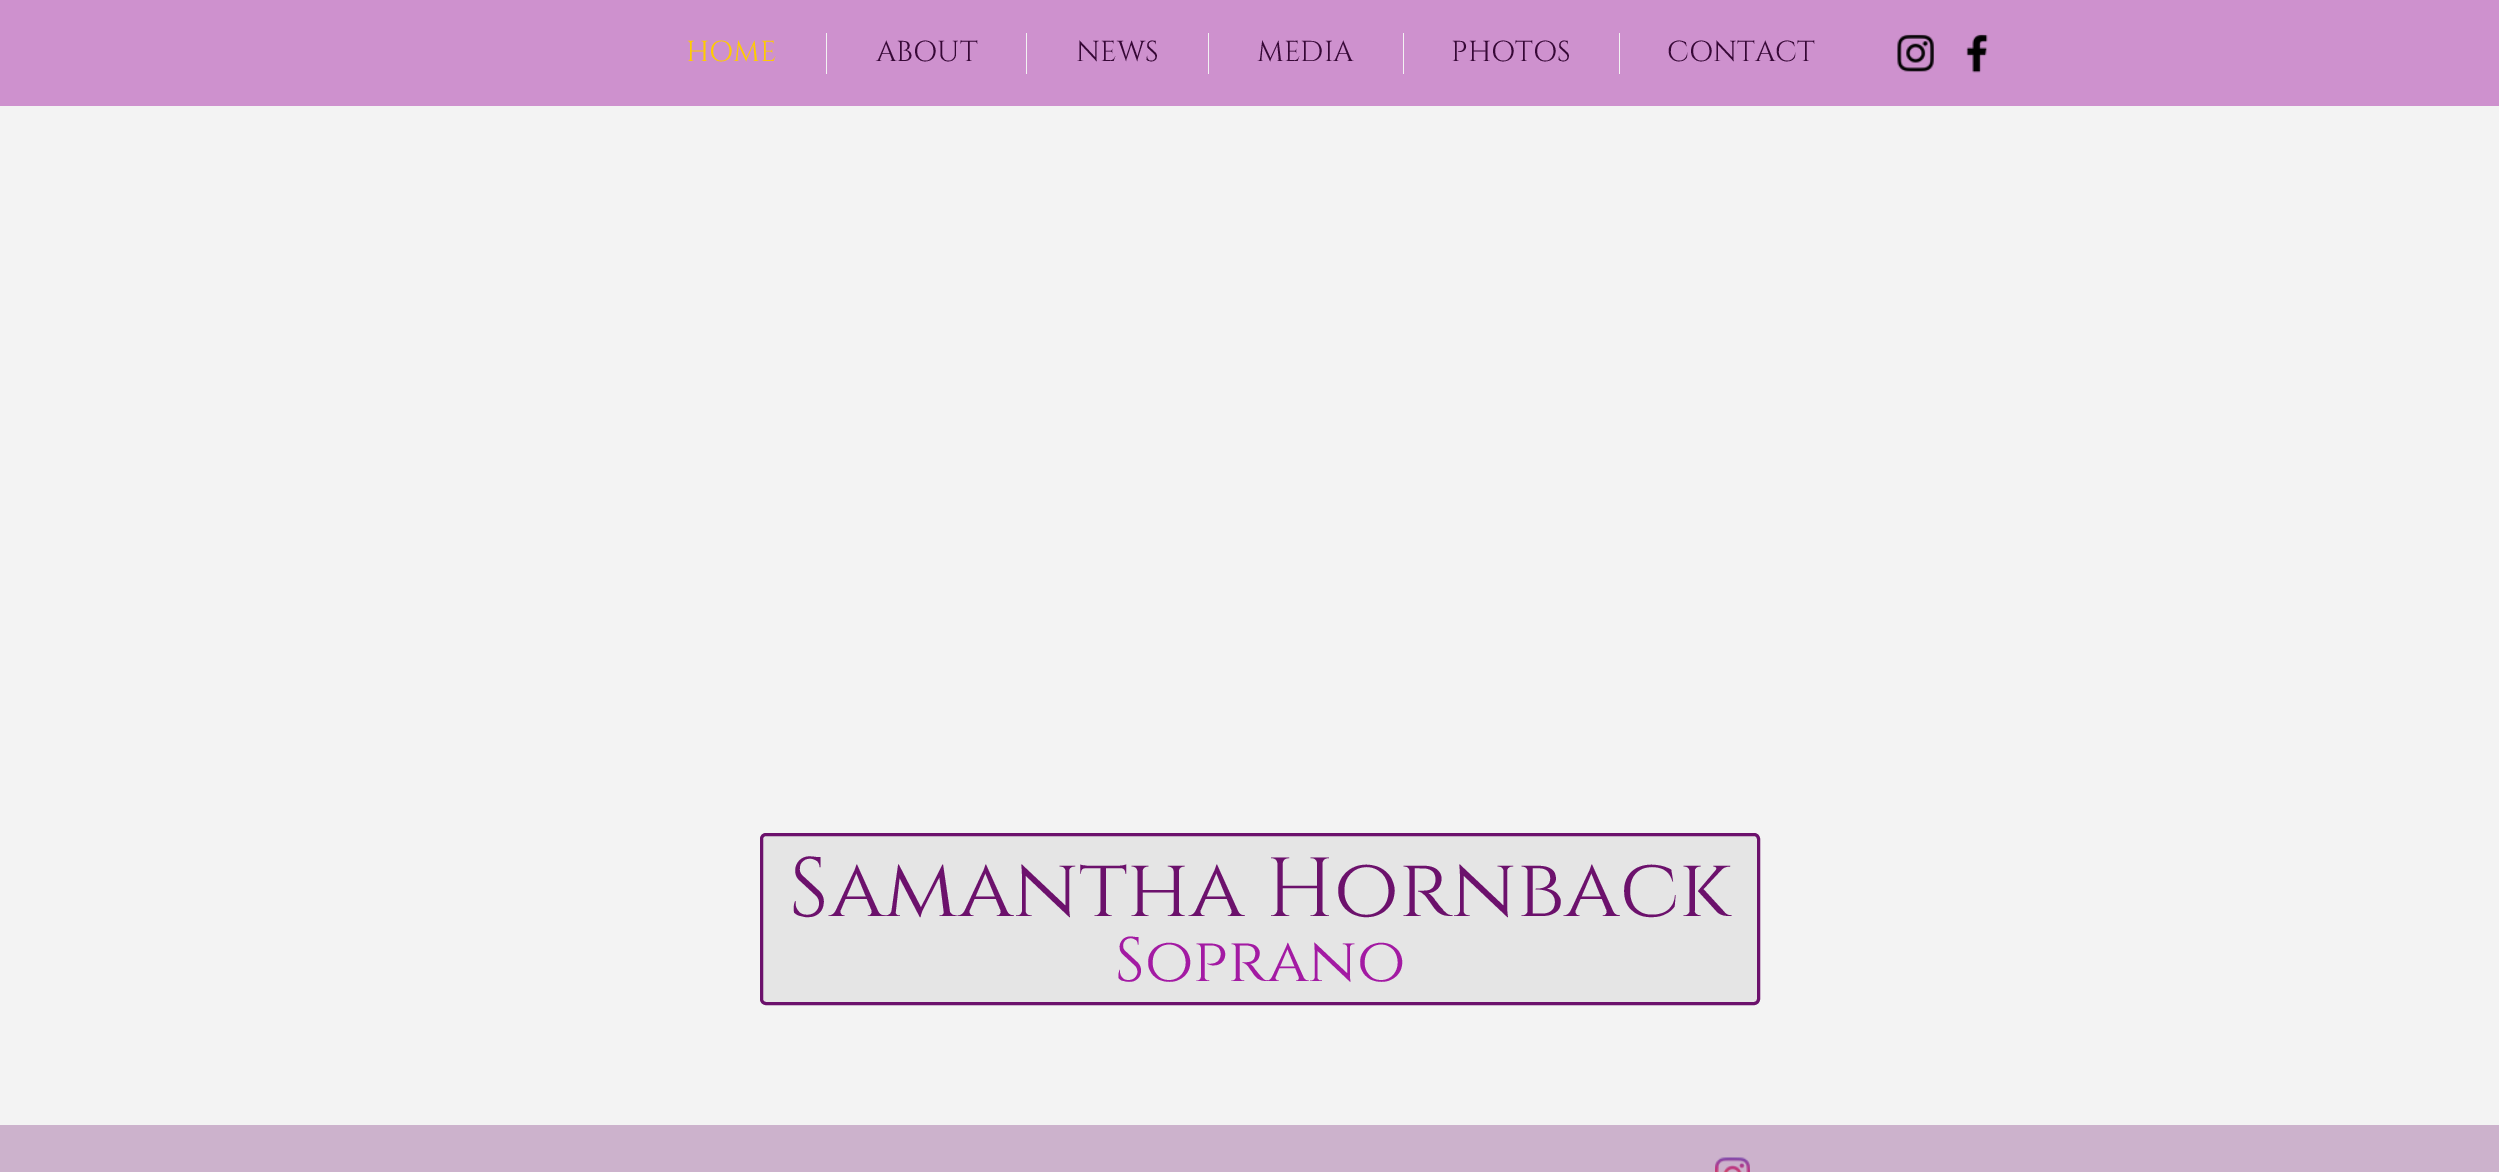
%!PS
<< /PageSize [2499 1172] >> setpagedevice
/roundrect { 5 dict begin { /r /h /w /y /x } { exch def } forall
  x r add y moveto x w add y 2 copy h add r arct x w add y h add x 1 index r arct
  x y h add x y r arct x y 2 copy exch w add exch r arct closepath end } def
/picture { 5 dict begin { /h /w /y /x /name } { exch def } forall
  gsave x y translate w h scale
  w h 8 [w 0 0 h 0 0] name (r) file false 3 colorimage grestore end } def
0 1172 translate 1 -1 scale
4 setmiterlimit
0.953 setgray
0 0 2499 1172 rectfill
0.808 0.569 0.808 setrgbcolor
0 0 2499 106 rectfill
/Cinzel-Regular [28.75 0 0 -28.75 0 0] selectfont
1 0.8 0 setrgbcolor
686 61 moveto (HOME) show
0.953 setgray
826 33 1 41 rectfill
0.212 0.031 0.212 setrgbcolor
876 61 moveto (ABOUT) show
0.953 setgray
1026 33 1 41 rectfill
0.212 0.031 0.212 setrgbcolor
1076 61 moveto (NEWS) show
0.953 setgray
1208 33 1 41 rectfill
0.212 0.031 0.212 setrgbcolor
1257 61 moveto (MEDIA) show
0.953 setgray
1403 33 1 41 rectfill
0.212 0.031 0.212 setrgbcolor
1451 61 moveto (PHOTOS) show
0.953 setgray
1619 33 1 41 rectfill
0.212 0.031 0.212 setrgbcolor
1667 61 moveto (CONTACT) show
(img1.rgb) 1897 34 37 38 picture
(img2.rgb) 1966 34 22 39 picture
0.898 setgray
761.5 834.5 997 169 4.5 roundrect gsave fill grestore
0.424 0.067 0.424 setrgbcolor
3 setlinewidth
stroke
/Cinzel-Regular [83.75 0 0 -83.75 0 0] selectfont
789 916 moveto (Samantha Hornback) show
/Cinzel-Regular [62.5 0 0 -62.5 0 0] selectfont
0.639 0.102 0.639 setrgbcolor
1115 981 moveto (Soprano) show
0.8 0.698 0.8 setrgbcolor
0 1125 2499 47 rectfill
(img3.rgb) 1715 1157 35 15 picture
showpage
